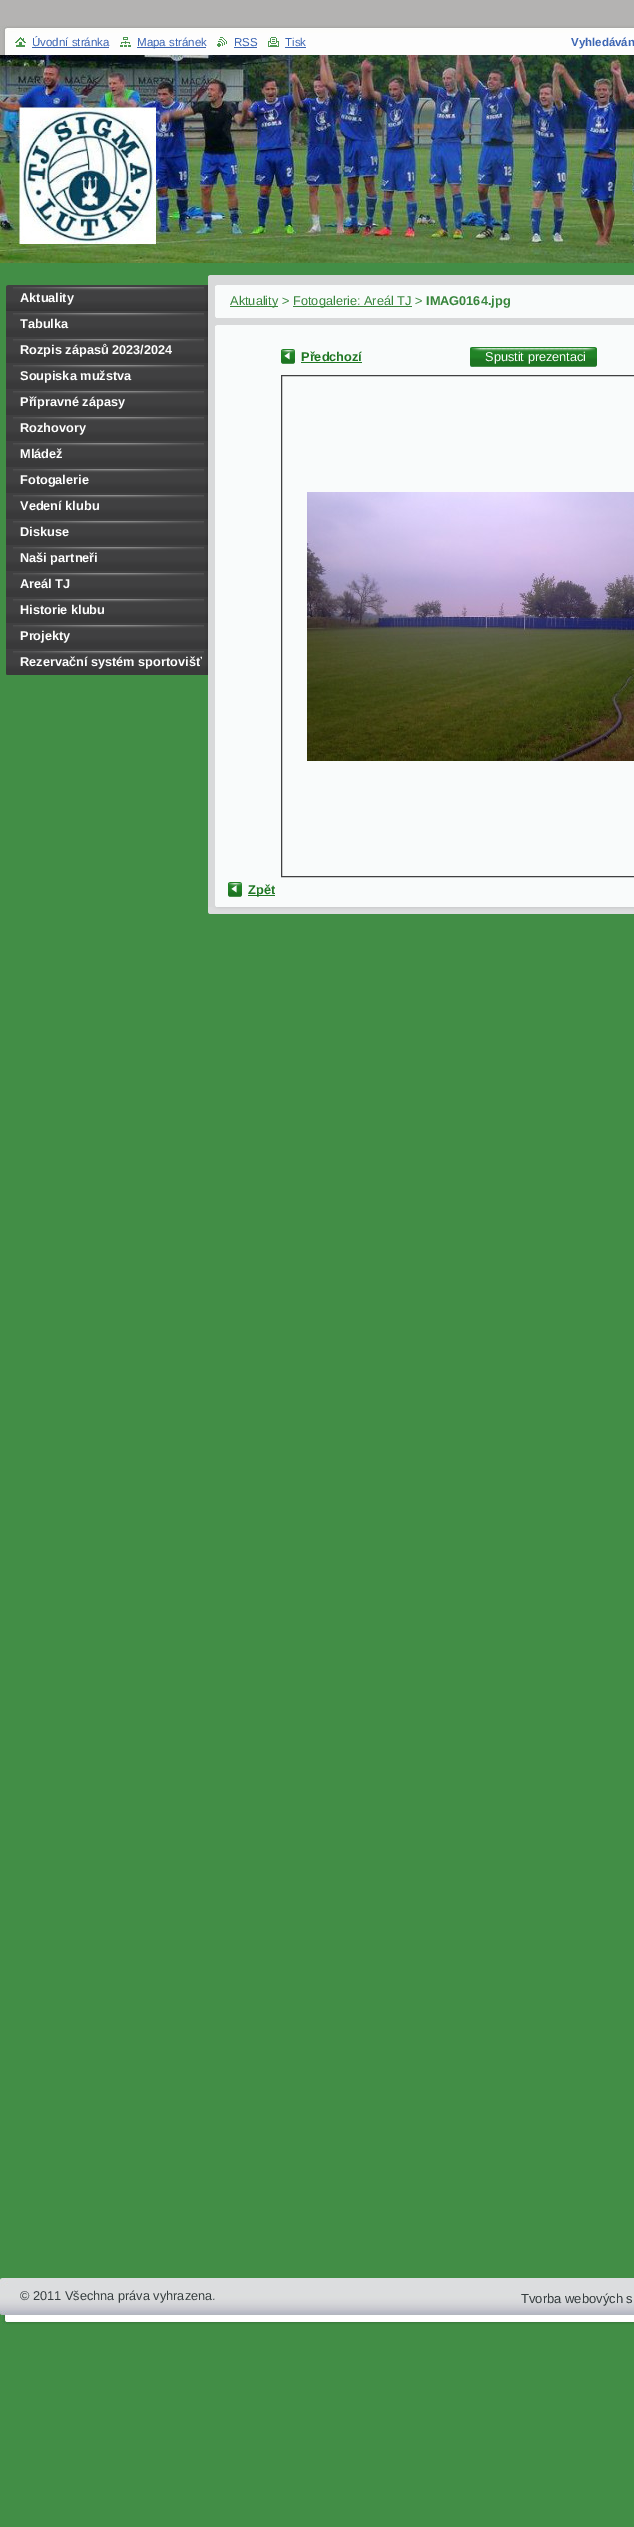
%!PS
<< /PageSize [634 2527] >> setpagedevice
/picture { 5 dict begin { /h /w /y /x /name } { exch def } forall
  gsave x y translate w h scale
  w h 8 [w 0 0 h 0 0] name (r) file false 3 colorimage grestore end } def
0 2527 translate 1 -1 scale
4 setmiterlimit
0.259 0.557 0.275 setrgbcolor
0 0 634 2527 rectfill
(img1.rgb) 0 0 634 25 picture
(img2.rgb) 0 25 634 30 picture
(img3.rgb) 0 55 634 208 picture
(img4.rgb) 15 37 11 10 picture
/LiberationSans-Regular [11.5 0 0 -11.5 0 0] selectfont
0.235 0.396 0.702 setrgbcolor
32 46 moveto (Úvodní stránka) show
32 47 77 1 rectfill
(img5.rgb) 120 37 11 10 picture
137 47 69 1 rectfill
137 46 moveto (Mapa stránek) show
(img6.rgb) 217 37 10 10 picture
234 46 moveto (RSS) show
234 47 23 1 rectfill
(img7.rgb) 268 37 11 10 picture
285 46 moveto (Tisk) show
285 47 21 1 rectfill
/LiberationSans-Bold [11.5 0 0 -11.5 0 0] selectfont
571 46 moveto (Vyhledáván) show
(img8.rgb) 6 285 202 26 picture
/LiberationSans-Bold [12.75 0 0 -12.75 0 0] selectfont
1 setgray
20 302 moveto (Aktuality) show
(img9.rgb) 6 311 202 26 picture
20 328 moveto (Tabulka) show
(img9.rgb) 6 337 202 26 picture
20 354 moveto (Rozpis zápasů 2023/2024) show
(img9.rgb) 6 363 202 26 picture
20 380 moveto (Soupiska mužstva) show
(img9.rgb) 6 389 202 26 picture
20 406 moveto (Přípravné zápasy) show
(img9.rgb) 6 415 202 26 picture
20 432 moveto (Rozhovory) show
(img9.rgb) 6 441 202 26 picture
20 458 moveto (Mládež) show
(img9.rgb) 6 467 202 26 picture
20 484 moveto (Fotogalerie) show
(img9.rgb) 6 493 202 26 picture
20 510 moveto (Vedení klubu) show
(img9.rgb) 6 519 202 26 picture
20 536 moveto (Diskuse) show
(img9.rgb) 6 545 202 26 picture
20 562 moveto (Naši partneři) show
(img9.rgb) 6 571 202 26 picture
20 588 moveto (Areál TJ) show
(img9.rgb) 6 597 202 26 picture
20 614 moveto (Historie klubu) show
(img9.rgb) 6 623 202 26 picture
20 640 moveto (Projekty) show
(img10.rgb) 6 649 202 26 picture
20 666 moveto (Rezervační systém sportovišť) show
0.847 0.851 0.855 setrgbcolor
208 275 426 632 rectfill
(img11.rgb) 208 907 426 7 picture
(img12.rgb) 208 275 2 2 picture
0.976 0.984 0.984 setrgbcolor
215 285 419 33 rectfill
(img13.rgb) 215 316 1 2 picture
(img14.rgb) 215 285 2 1 picture
0.22 0.522 0.235 setrgbcolor
230 306 48 1 rectfill
/LiberationSans-Regular [12.75 0 0 -12.75 0 0] selectfont
230 305 moveto (Aktuality >) show
293 306 119 1 rectfill
293 305 moveto (Fotogalerie: Areál TJ >) show
/LiberationSans-Bold [12.75 0 0 -12.75 0 0] selectfont
426 305 moveto (IMAG0164.jpg) show
0.976 0.984 0.984 setrgbcolor
215 325 419 582 rectfill
(img13.rgb) 215 905 1 2 picture
(img14.rgb) 215 325 2 1 picture
(img15.rgb) 281 349 14 15 picture
0.122 0.467 0.137 setrgbcolor
301 361 moveto (Předchozí) show
301 362 61 1 rectfill
(img16.rgb) 470 347 10 20 picture
(img17.rgb) 480 347 117 20 picture
/LiberationSans-Regular [12.75 0 0 -12.75 0 0] selectfont
1 setgray
485 361 moveto (Spustit prezentaci) show
0.251 0.251 0.255 setrgbcolor
281.5 375.5 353 501 rectstroke
(img18.rgb) 307 492 327 269 picture
(img15.rgb) 228 882 14 15 picture
0.122 0.467 0.137 setrgbcolor
248 895 27 1 rectfill
/LiberationSans-Bold [12.75 0 0 -12.75 0 0] selectfont
248 894 moveto (Zpět) show
(img19.rgb) 0 2278 634 47 picture
/LiberationSans-Regular [12.75 0 0 -12.75 0 0] selectfont
0.208 0.239 0.247 setrgbcolor
20 2300 moveto (© 2011 Všechna práva vyhrazena.) show
/LiberationSans-Regular [13 0 0 -13 0 0] selectfont
521 2303 moveto (Tvorba webových s) show
showpage
